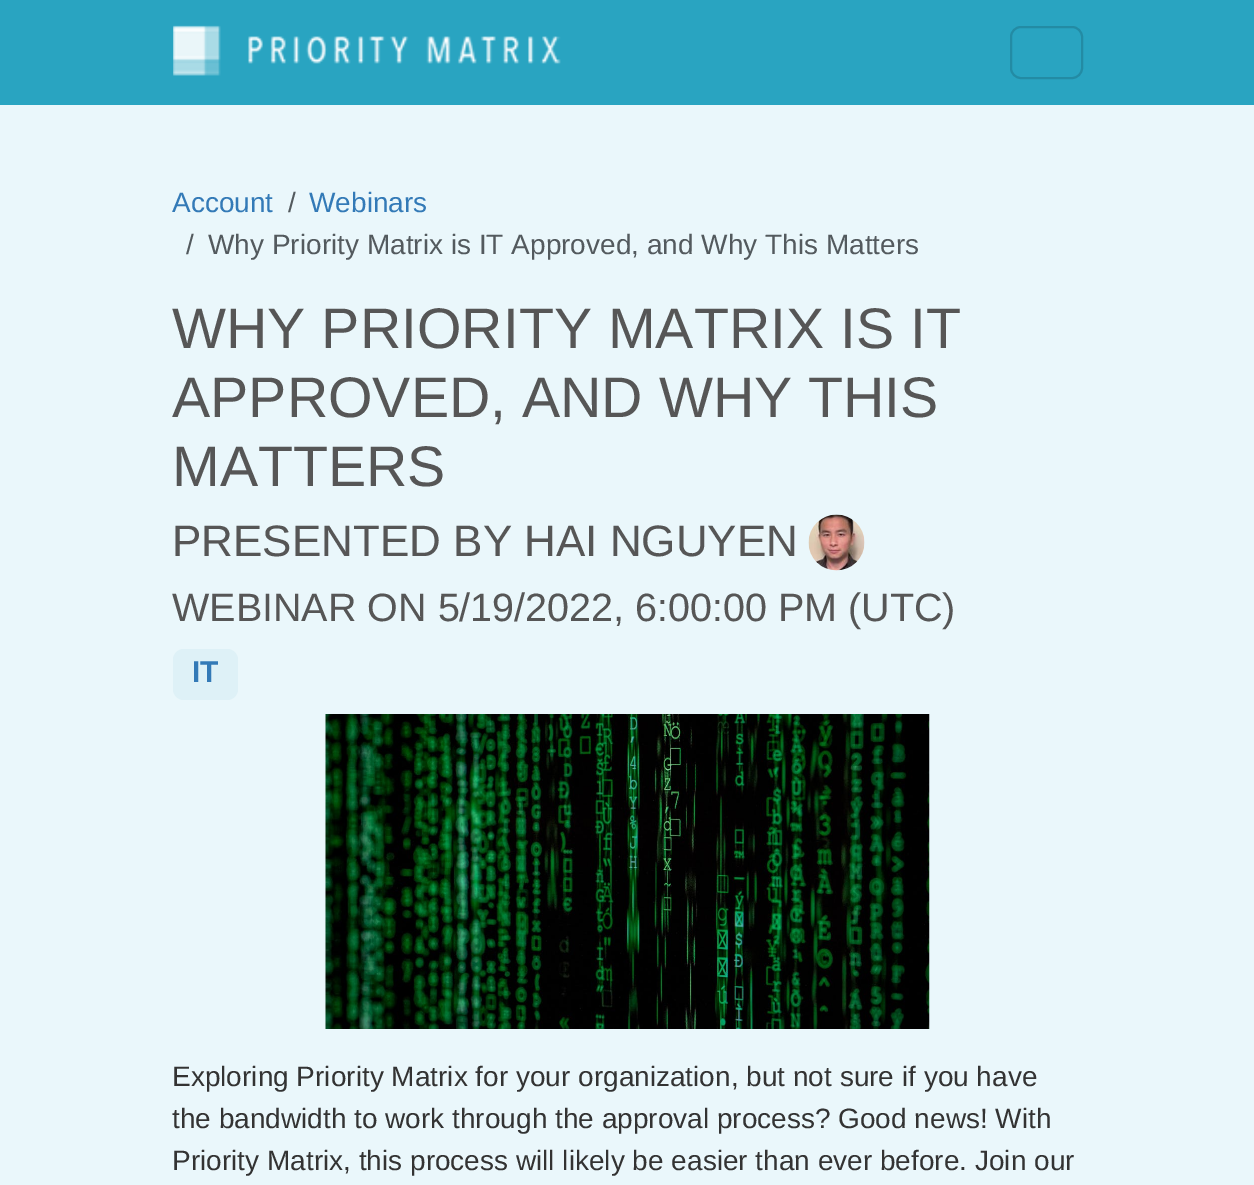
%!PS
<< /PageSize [1254 1185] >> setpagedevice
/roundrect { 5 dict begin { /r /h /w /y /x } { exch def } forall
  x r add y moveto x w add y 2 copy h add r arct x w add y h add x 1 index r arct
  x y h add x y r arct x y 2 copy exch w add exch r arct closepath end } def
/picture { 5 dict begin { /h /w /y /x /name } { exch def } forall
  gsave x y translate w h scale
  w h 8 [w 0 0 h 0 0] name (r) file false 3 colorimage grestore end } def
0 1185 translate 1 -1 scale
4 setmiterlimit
0.918 0.969 0.984 setrgbcolor
0 0 1254 1185 rectfill
0.161 0.643 0.757 setrgbcolor
0 0 1254 105 rectfill
(img1.rgb) 173 25 388 51 picture
0.137 0.545 0.643 setrgbcolor
2 setlinewidth
1011 27 71 51 10 roundrect stroke
/LiberationSans-Regular [28 0 0 -28 0 0] selectfont
0.2 0.478 0.718 setrgbcolor
172 212 moveto (Account) show
0.325 0.353 0.369 setrgbcolor
288 212 moveto (/) show
0.2 0.478 0.718 setrgbcolor
309 212 moveto (Webinars) show
0.325 0.353 0.369 setrgbcolor
186 254 moveto (/) show
208 254 moveto (Why Priority Matrix is IT Approved, and Why This Matters) show
/LiberationSans-Regular [57.25 0 0 -57.25 0 0] selectfont
0.337 setgray
172 348 moveto (WHY PRIORITY MATRIX IS IT) show
172 417 moveto (APPROVED, AND WHY THIS) show
172 486 moveto (MATTERS) show
/LiberationSans-Regular [44 0 0 -44 0 0] selectfont
172 556 moveto (PRESENTED BY HAI NGUYEN) show
(img2.rgb) 808 514 57 57 picture
/LiberationSans-Regular [39.5 0 0 -39.5 0 0] selectfont
172 621 moveto (WEBINAR ON 5/19/2022, 6:00:00 PM \(UTC\)) show
0.871 0.945 0.969 setrgbcolor
173 649 65 51 11 roundrect fill
/LiberationSans-Bold [30 0 0 -30 0 0] selectfont
0.2 0.478 0.718 setrgbcolor
192 682 moveto (IT) show
(img3.rgb) 325 714 605 315 picture
/LiberationSans-Regular [28 0 0 -28 0 0] selectfont
0.2 setgray
172 1086 moveto (Exploring Priority Matrix for your organization, but not sure if you have) show
172 1128 moveto (the bandwidth to work through the approval process? Good news! With) show
172 1170 moveto (Priority Matrix, this process will likely be easier than ever before. Join our) show
showpage
